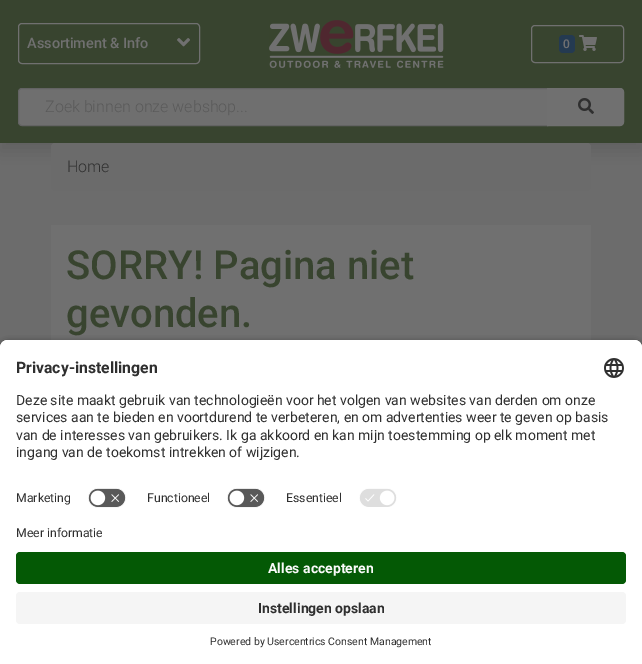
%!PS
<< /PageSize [642 664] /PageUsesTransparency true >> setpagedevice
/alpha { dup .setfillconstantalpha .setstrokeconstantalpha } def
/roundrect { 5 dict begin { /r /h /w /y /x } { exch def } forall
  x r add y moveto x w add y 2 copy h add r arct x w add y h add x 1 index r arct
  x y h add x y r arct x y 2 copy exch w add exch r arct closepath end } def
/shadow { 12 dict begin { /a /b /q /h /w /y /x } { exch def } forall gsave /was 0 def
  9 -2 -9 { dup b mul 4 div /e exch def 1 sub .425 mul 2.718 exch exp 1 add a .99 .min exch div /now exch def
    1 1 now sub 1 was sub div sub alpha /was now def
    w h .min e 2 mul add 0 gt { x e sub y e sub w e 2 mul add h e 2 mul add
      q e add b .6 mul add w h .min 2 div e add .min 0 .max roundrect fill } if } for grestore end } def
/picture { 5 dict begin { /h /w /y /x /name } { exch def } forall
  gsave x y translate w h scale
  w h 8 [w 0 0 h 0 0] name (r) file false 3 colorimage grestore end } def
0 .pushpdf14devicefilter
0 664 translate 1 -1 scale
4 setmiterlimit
0.424 setgray
0 0 642 664 rectfill
0.141 setgray
0 8 642 143 0 8 0.15 shadow
0.22 0.267 0.184 setrgbcolor
0 0 642 143 rectfill
0.439 setgray
18.5 23.5 181 40 3.5 roundrect stroke
/Roboto-Medium [14.5 0 0 -14.5 0 0] selectfont
27 48 moveto (Assortiment & Info) show
(img1.rgb) 177 38 13 9 picture
(img2.rgb) 269 20 175 48 picture
531.5 25.5 92 37 3.5 roundrect stroke
0.141 0.227 0.318 setrgbcolor
559 35 16 18 4 roundrect fill
/Roboto-Medium [12 0 0 -12 0 0] selectfont
0.439 setgray
563 48 moveto (0) show
(img3.rgb) 579 35 18 16 picture
0.435 setgray
newpath 22 88.5 moveto 547.5 88.5 lineto 547.5 125.5 lineto 22 125.5 lineto 20 125.5 18.5 124 18.5 122 curveto 18.5 92 lineto 18.5 90 20 88.5 22 88.5 curveto closepath gsave fill grestore
0.388 setgray
stroke
/Roboto-Light [16 0 0 -16 0 0] selectfont
0.353 setgray
45 112 moveto (Zoek binnen onze webshop...) show
0.439 setgray
newpath 547.5 88.5 moveto 620 88.5 lineto 622 88.5 623.5 90 623.5 92 curveto 623.5 122 lineto 623.5 124 622 125.5 620 125.5 curveto 547.5 125.5 lineto closepath gsave fill grestore
stroke
(img4.rgb) 578 98 16 16 picture
0.42 setgray
51 143 540 48 4 roundrect fill
0.184 setgray
67 172 moveto (Home) show
0.439 setgray
51 225 540 115 rectfill
/Roboto-Medium [40 0 0 -40 0 0] selectfont
0.22 0.267 0.184 setrgbcolor
66 279 moveto (SORRY! Pagina niet) show
66 327 moveto (gevonden.) show
0 setgray
0 343 642 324 8 3.5 0.8 shadow
1 setgray
newpath 8 340 moveto 634 340 lineto 638.5 340 642 343.5 642 348 curveto 642 526 lineto 0 526 lineto 0 348 lineto 0 343.5 3.5 340 8 340 curveto closepath fill
newpath 8 340 moveto 634 340 lineto 638.5 340 642 343.5 642 348 curveto 642 482 lineto 0 482 lineto 0 348 lineto 0 343.5 3.5 340 8 340 curveto closepath fill
/Roboto-Bold [15.75 0 0 -15.75 0 0] selectfont
0.184 setgray
16 373 moveto (Privacy-instellingen) show
(img5.rgb) 604 358 20 20 picture
/Roboto-Regular [14 0 0 -14 0 0] selectfont
16 405 moveto (Deze site maakt gebruik van technologieën voor het volgen van websites van derden om onze) show
16 422 moveto (services aan te bieden en voortdurend te verbeteren, en om advertenties weer te geven op basis) show
16 440 moveto (van de interesses van gebruikers. Ik ga akkoord en kan mijn toestemming op elk moment met) show
16 457 moveto (ingang van de toekomst intrekken of wijzigen.) show
/Roboto-Regular [12.25 0 0 -12.25 0 0] selectfont
16 502 moveto (Marketing) show
(img6.rgb) 88 488 38 20 picture
147 502 moveto (Functioneel) show
(img6.rgb) 227 488 38 20 picture
286 502 moveto (Essentieel) show
(img7.rgb) 359 488 38 19 picture
1 setgray
0 526 642 138 rectfill
0.184 setgray
16 537 moveto (Meer informatie) show
0.016 0.349 0.02 setrgbcolor
16 552 610 32 4 roundrect fill
/Roboto-Bold [14 0 0 -14 0 0] selectfont
0.98 setgray
268 573 moveto (Alles accepteren) show
0.961 setgray
16 592 610 32 4 roundrect fill
0.184 setgray
258 613 moveto (Instellingen opslaan) show
/Roboto-Regular [10.5 0 0 -10.5 0 0] selectfont
210 645 moveto (Powered by Usercentrics Consent Management) show
.poppdf14devicefilter showpage
